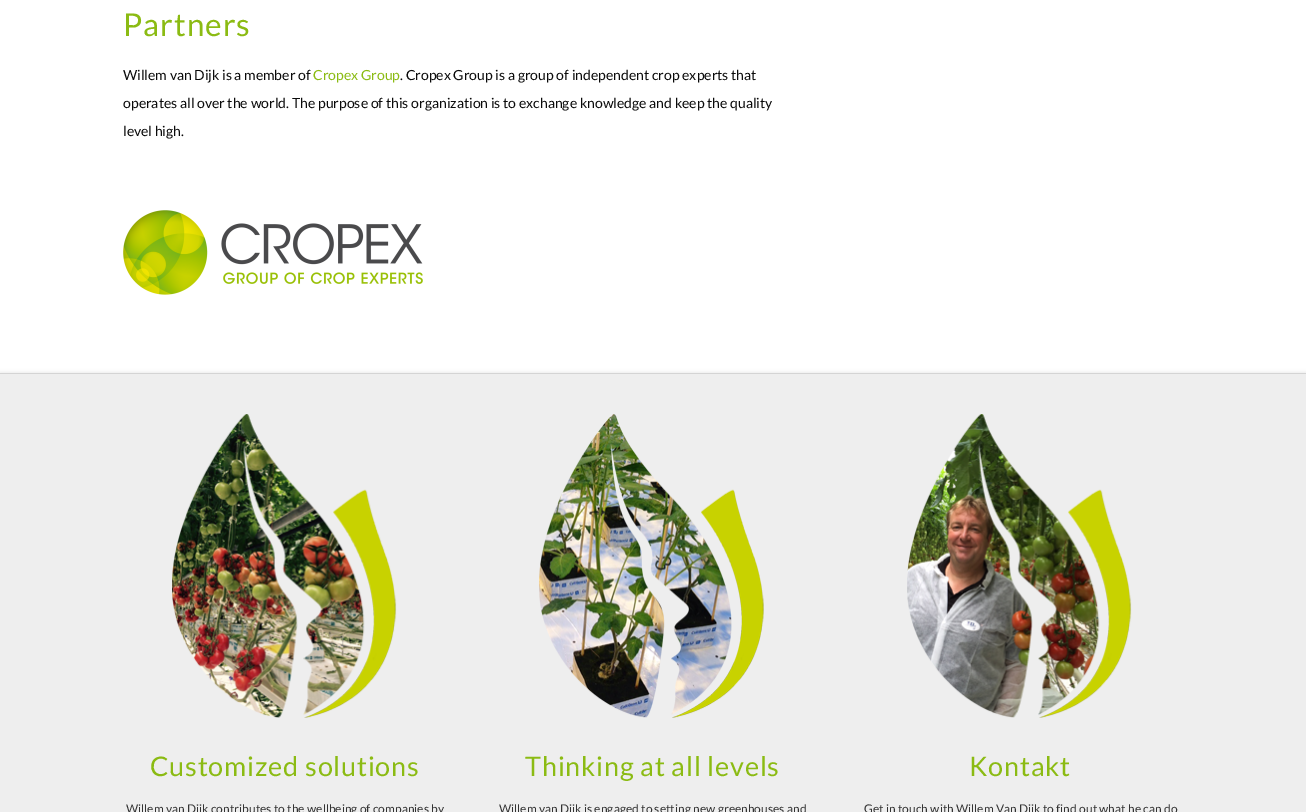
%!PS
<< /PageSize [1306 812] /PageUsesTransparency true >> setpagedevice
/alpha { dup .setfillconstantalpha .setstrokeconstantalpha } def
/roundrect { 5 dict begin { /r /h /w /y /x } { exch def } forall
  x r add y moveto x w add y 2 copy h add r arct x w add y h add x 1 index r arct
  x y h add x y r arct x y 2 copy exch w add exch r arct closepath end } def
/shadow { 12 dict begin { /a /b /q /h /w /y /x } { exch def } forall gsave /was 0 def
  9 -2 -9 { dup b mul 4 div /e exch def 1 sub .425 mul 2.718 exch exp 1 add a .99 .min exch div /now exch def
    1 1 now sub 1 was sub div sub alpha /was now def
    w h .min e 2 mul add 0 gt { x e sub y e sub w e 2 mul add h e 2 mul add
      q e add b .6 mul add w h .min 2 div e add .min 0 .max roundrect fill } if } for grestore end } def
/picture { 5 dict begin { /h /w /y /x /name } { exch def } forall
  gsave x y translate w h scale
  w h 8 [w 0 0 h 0 0] name (r) file false 3 colorimage grestore end } def
0 .pushpdf14devicefilter
0 812 translate 1 -1 scale
4 setmiterlimit
1 setgray
0 0 1306 812 rectfill
/Lato-Regular [31.5 0 0 -31.5 0 0] selectfont
0.545 0.733 0.075 setrgbcolor
123 36 moveto 1 0 (Partners) ashow
/Lato-Regular [14 0 0 -14 0 0] selectfont
0.039 setgray
123 80 moveto (Willem van Dijk is a member of) show
0.545 0.733 0.075 setrgbcolor
313 80 moveto (Cropex Group) show
0.039 setgray
400 80 moveto (. Cropex Group is a group of independent crop experts that) show
123 108 moveto (operates all over the world. The purpose of this organization is to exchange knowledge and keep the quality) show
123 136 moveto (level high.) show
(img1.rgb) 123 210 300 85 picture
0 setgray
0 372 1306 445 0 1.5 0.07 shadow
0.933 setgray
0 374 1306 438 rectfill
0.831 setgray
0 373 1306 1 rectfill
(img2.rgb) 172 414 225 304 picture
/Lato-Regular [27 0 0 -27 0 0] selectfont
0.545 0.733 0.075 setrgbcolor
150 776 moveto 0.8 0 (Customized solutions) ashow
/Lato-Regular [12 0 0 -12 0 0] selectfont
0.2 setgray
126 813 moveto (Willem van Dijk contributes to the wellbeing of companies by) show
(img3.rgb) 539 414 225 304 picture
/Lato-Regular [27 0 0 -27 0 0] selectfont
0.545 0.733 0.075 setrgbcolor
525 776 moveto 0.8 0 (Thinking at all levels) ashow
/Lato-Regular [12 0 0 -12 0 0] selectfont
0.2 setgray
499 813 moveto (Willem van Dijk is engaged to setting new greenhouses and) show
(img4.rgb) 907 414 225 304 picture
/Lato-Regular [27 0 0 -27 0 0] selectfont
0.545 0.733 0.075 setrgbcolor
969 776 moveto 0.8 0 (Kontakt) ashow
/Lato-Regular [12 0 0 -12 0 0] selectfont
0.2 setgray
864 813 moveto (Get in touch with Willem Van Dijk to find out what he can do) show
.poppdf14devicefilter showpage
